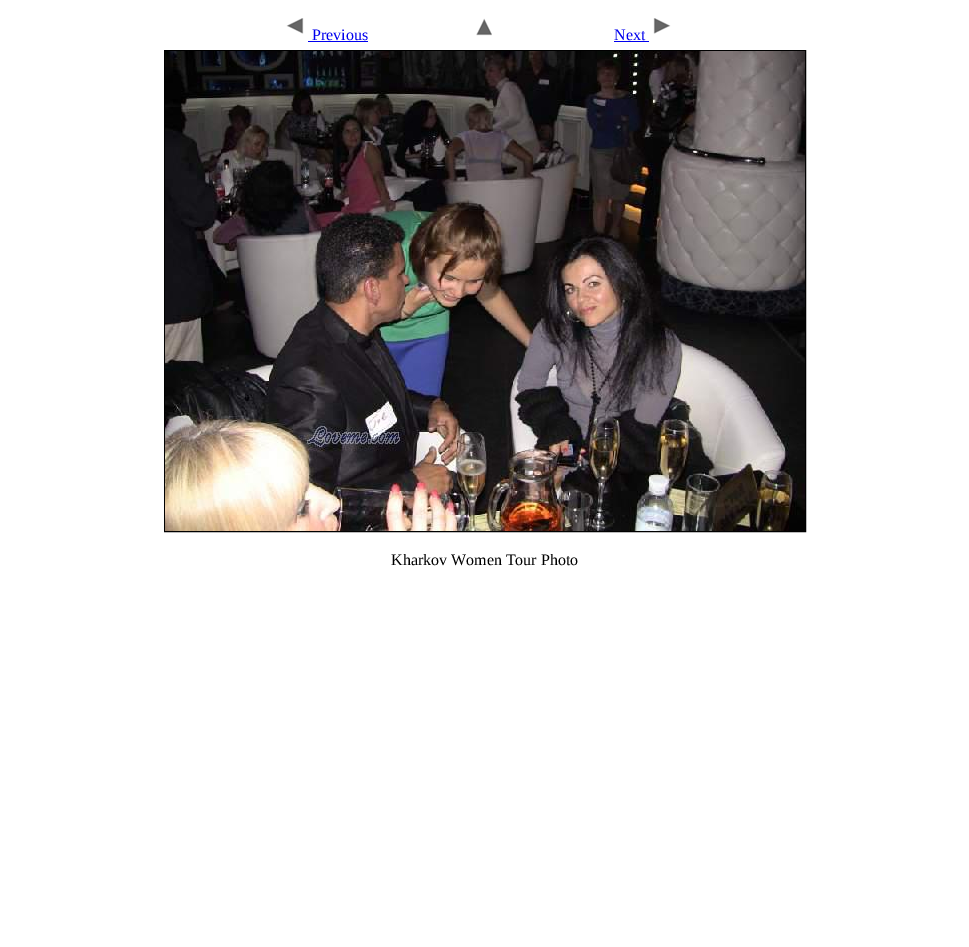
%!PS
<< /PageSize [969 947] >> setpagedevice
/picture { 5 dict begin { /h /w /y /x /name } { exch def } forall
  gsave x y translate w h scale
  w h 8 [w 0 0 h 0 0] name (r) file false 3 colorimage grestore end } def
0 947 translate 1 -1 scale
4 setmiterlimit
1 setgray
0 0 969 947 rectfill
(img1.rgb) 286 18 18 16 picture
/LiberationSerif-Regular [16 0 0 -16 0 0] selectfont
0 0 0.933 setrgbcolor
312 40 moveto (Previous) show
308 41 60 1 rectfill
(img2.rgb) 476 18 16 18 picture
614 40 moveto (Next) show
614 41 35 1 rectfill
(img3.rgb) 653 18 18 16 picture
0 setgray
164.5 50.5 641 481 rectstroke
(img4.rgb) 165 51 640 480 picture
391 565 moveto (Kharkov Women Tour Photo) show
showpage
